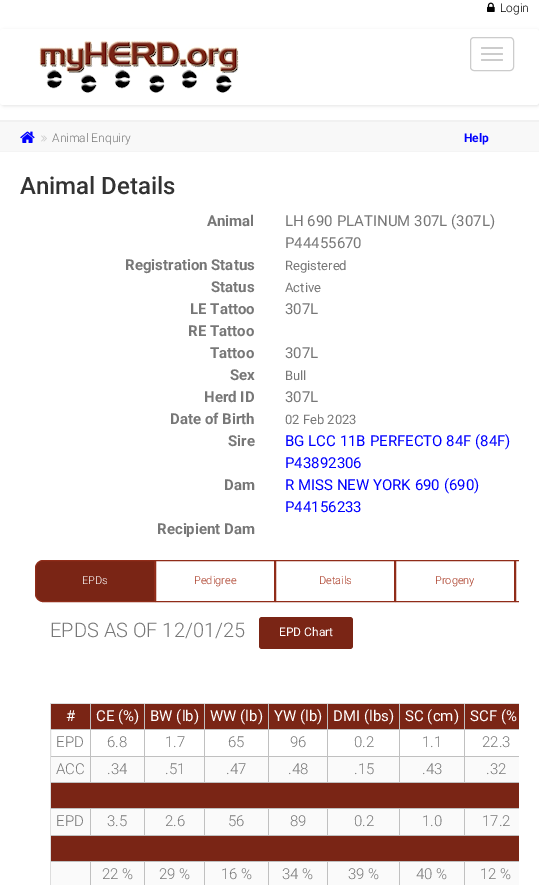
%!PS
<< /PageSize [539 885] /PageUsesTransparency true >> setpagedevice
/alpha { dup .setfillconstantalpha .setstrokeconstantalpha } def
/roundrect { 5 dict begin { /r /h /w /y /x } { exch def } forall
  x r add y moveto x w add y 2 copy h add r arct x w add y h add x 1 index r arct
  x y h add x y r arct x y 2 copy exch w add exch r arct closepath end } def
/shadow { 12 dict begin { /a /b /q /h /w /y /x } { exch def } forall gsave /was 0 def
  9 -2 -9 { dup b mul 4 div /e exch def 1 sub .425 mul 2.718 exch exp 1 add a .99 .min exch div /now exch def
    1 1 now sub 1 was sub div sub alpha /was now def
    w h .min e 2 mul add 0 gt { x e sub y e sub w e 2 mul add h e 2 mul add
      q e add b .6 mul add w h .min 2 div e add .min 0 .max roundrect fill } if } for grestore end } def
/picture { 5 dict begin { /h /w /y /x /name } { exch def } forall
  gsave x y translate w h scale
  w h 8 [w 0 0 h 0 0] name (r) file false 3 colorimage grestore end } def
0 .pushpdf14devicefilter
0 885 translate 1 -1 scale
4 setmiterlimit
1 setgray
0 0 539 885 rectfill
(img1.rgb) 487 2 8 10 picture
/Roboto-Light [12 0 0 -12 0 0] selectfont
0 setgray
500 12 moveto (Login) show
0.945 setgray
0 120 539 2 rectfill
0 setgray
1 30 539 76 3 1.5 0.1 shadow
1 setgray
0 29 539 76 3 roundrect fill
(img2.rgb) 39 40 200 53 picture
0.8 setgray
470.5 37.5 43 33 3.5 roundrect stroke
481 47 22 2 1 roundrect fill
481 53 22 2 1 roundrect fill
481 59 22 2 1 roundrect fill
0.973 setgray
0 122 539 29 rectfill
0.957 setgray
0 151 539 1 rectfill
(img3.rgb) 20 131 15 12 picture
(img4.rgb) 41 135 6 7 picture
0.467 setgray
52 142 moveto (Animal Enquiry) show
/Roboto-Bold [12 0 0 -12 0 0] selectfont
0 0 1 setrgbcolor
464 142 moveto (Help) show
/Roboto-Medium [24 0 0 -24 0 0] selectfont
0.2 setgray
20 194 moveto (Animal Details) show
/Roboto-Bold [15 0 0 -15 0 0] selectfont
0.467 setgray
207 226 moveto (Animal) show
/Roboto-Regular [15 0 0 -15 0 0] selectfont
285 226 moveto (LH 690 PLATINUM 307L \(307L\)) show
285 248 moveto (P44455670) show
/Roboto-Bold [15 0 0 -15 0 0] selectfont
125 270 moveto (Registration Status) show
/Roboto-Regular [13 0 0 -13 0 0] selectfont
285 270 moveto (Registered) show
/Roboto-Bold [15 0 0 -15 0 0] selectfont
211 292 moveto (Status) show
/Roboto-Regular [13 0 0 -13 0 0] selectfont
285 292 moveto (Active) show
/Roboto-Bold [15 0 0 -15 0 0] selectfont
190 314 moveto (LE Tattoo) show
/Roboto-Regular [15 0 0 -15 0 0] selectfont
285 314 moveto (307L) show
/Roboto-Bold [15 0 0 -15 0 0] selectfont
188 336 moveto (RE Tattoo) show
210 358 moveto (Tattoo) show
/Roboto-Regular [15 0 0 -15 0 0] selectfont
285 358 moveto (307L) show
/Roboto-Bold [15 0 0 -15 0 0] selectfont
230 380 moveto (Sex) show
/Roboto-Regular [13 0 0 -13 0 0] selectfont
285 380 moveto (Bull) show
/Roboto-Bold [15 0 0 -15 0 0] selectfont
204 402 moveto (Herd ID) show
/Roboto-Regular [15 0 0 -15 0 0] selectfont
285 402 moveto (307L) show
/Roboto-Bold [15 0 0 -15 0 0] selectfont
170 424 moveto (Date of Birth) show
/Roboto-Regular [13 0 0 -13 0 0] selectfont
285 424 moveto (02 Feb 2023) show
/Roboto-Bold [15 0 0 -15 0 0] selectfont
228 446 moveto (Sire) show
/Roboto-Regular [15 0 0 -15 0 0] selectfont
0 0 1 setrgbcolor
285 446 moveto (BG LCC 11B PERFECTO 84F \(84F\)) show
285 468 moveto (P43892306) show
/Roboto-Bold [15 0 0 -15 0 0] selectfont
0.467 setgray
224 490 moveto (Dam) show
/Roboto-Regular [15 0 0 -15 0 0] selectfont
0 0 1 setrgbcolor
285 490 moveto (R MISS NEW YORK 690 \(690\)) show
285 512 moveto (P44156233) show
/Roboto-Bold [15 0 0 -15 0 0] selectfont
0.467 setgray
157 534 moveto (Recipient Dam) show
0.478 0.145 0.082 setrgbcolor
newpath 43 560.5 moveto 154.5 560.5 lineto 154.5 601.5 lineto 43 601.5 lineto 39 601.5 35.5 598 35.5 594 curveto 35.5 568 lineto 35.5 564 39 560.5 43 560.5 curveto closepath gsave fill grestore
0.565 0.173 0.098 setrgbcolor
stroke
/Roboto-Light [11 0 0 -11 0 0] selectfont
1 setgray
82 584 moveto (EPDs) show
0.565 0.173 0.098 setrgbcolor
155.5 560.5 119 41 rectstroke
0.651 0.196 0.11 setrgbcolor
194 584 moveto (Pedigree) show
0.565 0.173 0.098 setrgbcolor
275.5 560.5 119 41 rectstroke
0.651 0.196 0.11 setrgbcolor
319 584 moveto (Details) show
0.565 0.173 0.098 setrgbcolor
395.5 560.5 119 41 rectstroke
0.651 0.196 0.11 setrgbcolor
435 584 moveto (Progeny) show
gsave
20 560 499 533 rectclip
0.565 0.173 0.098 setrgbcolor
newpath 515.5 560.5 moveto 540 560.5 lineto 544 560.5 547.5 564 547.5 568 curveto 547.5 594 lineto 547.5 598 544 601.5 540 601.5 curveto 515.5 601.5 lineto closepath stroke
grestore
/Roboto-Light [20 0 0 -20 0 0] selectfont
0.467 setgray
50 637 moveto (EPDS AS OF 12/01/25) show
0.478 0.145 0.082 setrgbcolor
259 617 94 32 3 roundrect fill
/Roboto-Regular [12 0 0 -12 0 0] selectfont
1 setgray
279 636 moveto (EPD Chart) show
gsave
20 560 499 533 rectclip
0.867 setgray
50.5 703.5 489 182 rectstroke
grestore
0.478 0.145 0.082 setrgbcolor
51 704 39 25 rectfill
/Roboto-Regular [15 0 0 -15 0 0] selectfont
1 setgray
66 721 moveto (#) show
0.478 0.145 0.082 setrgbcolor
91 704 53 25 rectfill
0.753 setgray
464 729 55 1 rectfill
464 756 55 1 rectfill
0.98 setgray
51 757 468 25 rectfill
0.753 setgray
51 782 468 1 rectfill
464 756 1 27 rectfill
399 756 66 1 rectfill
464 729 1 28 rectfill
399 729 66 1 rectfill
399 756 1 27 rectfill
327 756 73 1 rectfill
399 729 1 28 rectfill
327 729 73 1 rectfill
327 756 1 27 rectfill
268 756 60 1 rectfill
327 729 1 28 rectfill
268 729 60 1 rectfill
268 756 1 27 rectfill
204 756 65 1 rectfill
268 729 1 28 rectfill
204 729 65 1 rectfill
204 756 1 27 rectfill
144 756 61 1 rectfill
204 729 1 28 rectfill
144 729 61 1 rectfill
144 756 1 27 rectfill
90 756 55 1 rectfill
144 729 1 28 rectfill
90 729 55 1 rectfill
90 756 1 27 rectfill
51 756 40 1 rectfill
90 729 1 28 rectfill
51 729 40 1 rectfill
90 704 1 26 rectfill
1 setgray
96 721 moveto (CE \(%\)) show
0.478 0.145 0.082 setrgbcolor
145 704 59 25 rectfill
0.753 setgray
144 704 1 26 rectfill
1 setgray
150 721 moveto (BW \(lb\)) show
0.478 0.145 0.082 setrgbcolor
205 704 63 25 rectfill
0.753 setgray
204 704 1 26 rectfill
1 setgray
210 721 moveto (WW \(lb\)) show
0.478 0.145 0.082 setrgbcolor
269 704 58 25 rectfill
0.753 setgray
268 704 1 26 rectfill
1 setgray
274 721 moveto (YW \(lb\)) show
0.478 0.145 0.082 setrgbcolor
328 704 71 25 rectfill
0.753 setgray
327 704 1 26 rectfill
1 setgray
333 721 moveto (DMI \(lbs\)) show
0.478 0.145 0.082 setrgbcolor
400 704 64 25 rectfill
0.753 setgray
399 704 1 26 rectfill
1 setgray
405 721 moveto (SC \(cm\)) show
0.478 0.145 0.082 setrgbcolor
465 704 54 25 rectfill
0.753 setgray
464 704 1 26 rectfill
1 setgray
470 721 moveto (SCF \(%) show
/Roboto-Light [15 0 0 -15 0 0] selectfont
0.467 setgray
56 747 moveto (EPD) show
107 747 moveto (6.8) show
165 747 moveto (1.7) show
228 747 moveto (65) show
290 747 moveto (96) show
354 747 moveto (0.2) show
422 747 moveto (1.1) show
482 747 moveto (22.3) show
56 774 moveto (ACC) show
107 774 moveto (.34) show
165 774 moveto (.51) show
226 774 moveto (.47) show
288 774 moveto (.48) show
354 774 moveto (.15) show
422 774 moveto (.43) show
486 774 moveto (.32) show
0.478 0.145 0.082 setrgbcolor
51 783 468 25 rectfill
0.98 setgray
51 809 468 26 rectfill
0.753 setgray
464 808 55 1 rectfill
51 835 468 1 rectfill
464 808 1 28 rectfill
399 808 66 1 rectfill
399 808 1 28 rectfill
327 808 73 1 rectfill
327 808 1 28 rectfill
268 808 60 1 rectfill
268 808 1 28 rectfill
204 808 65 1 rectfill
204 808 1 28 rectfill
144 808 61 1 rectfill
144 808 1 28 rectfill
90 808 55 1 rectfill
90 808 1 28 rectfill
51 808 40 1 rectfill
0.467 setgray
56 826 moveto (EPD) show
107 826 moveto (3.5) show
165 826 moveto (2.6) show
228 826 moveto (56) show
290 826 moveto (89) show
354 826 moveto (0.2) show
422 826 moveto (1.0) show
482 826 moveto (17.2) show
0.478 0.145 0.082 setrgbcolor
51 836 468 25 rectfill
0.98 setgray
51 862 468 23 rectfill
0.753 setgray
464 861 55 1 rectfill
464 861 1 24 rectfill
399 861 66 1 rectfill
399 861 1 24 rectfill
327 861 73 1 rectfill
327 861 1 24 rectfill
268 861 60 1 rectfill
268 861 1 24 rectfill
204 861 65 1 rectfill
204 861 1 24 rectfill
144 861 61 1 rectfill
144 861 1 24 rectfill
90 861 55 1 rectfill
90 861 1 24 rectfill
51 861 40 1 rectfill
0.467 setgray
102 879 moveto (22 %) show
159 879 moveto (29 %) show
221 879 moveto (16 %) show
282 879 moveto (34 %) show
348 879 moveto (39 %) show
416 879 moveto (40 %) show
480 879 moveto (12 %) show
.poppdf14devicefilter showpage
